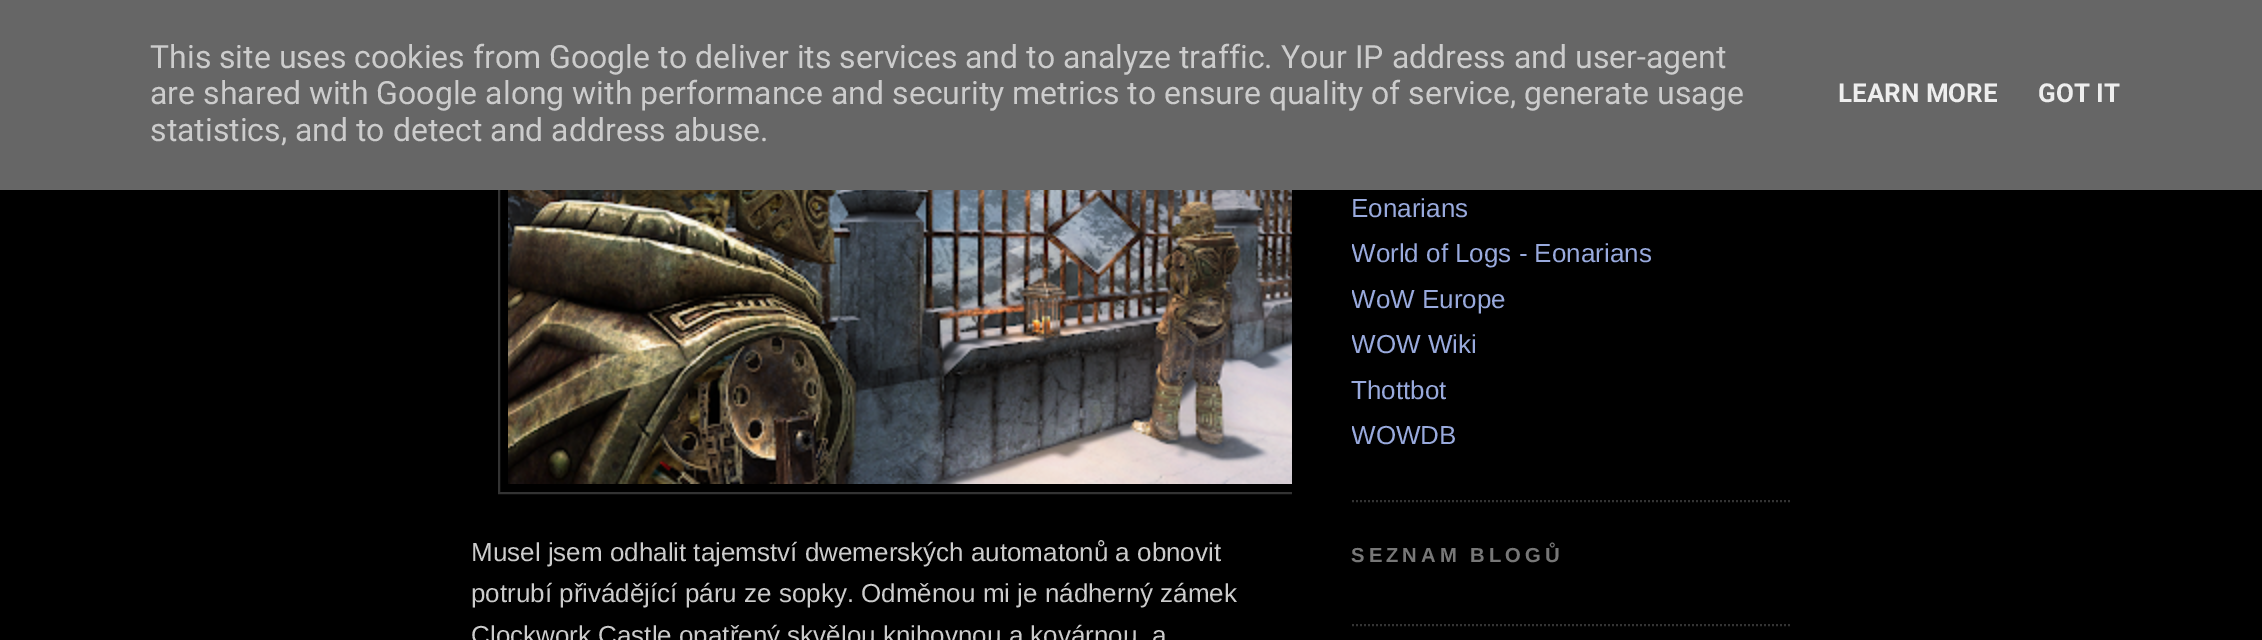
%!PS
<< /PageSize [2262 640] >> setpagedevice
/picture { 5 dict begin { /h /w /y /x /name } { exch def } forall
  gsave x y translate w h scale
  w h 8 [w 0 0 h 0 0] name (r) file false 3 colorimage grestore end } def
0 640 translate 1 -1 scale
4 setmiterlimit
0 setgray
0 0 2262 640 rectfill
gsave
472 0 820 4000 rectclip
0.2 setgray
2 setlinewidth
499 25 818 468 rectstroke
grestore
0.4 setgray
0 0 2262 190 rectfill
/Roboto-Regular [32 0 0 -32 0 0] selectfont
0.8 setgray
150 68 moveto (This site uses cookies from Google to deliver its services and to analyze traffic. Your IP address and user-agent) show
150 104 moveto (are shared with Google along with performance and security metrics to ensure quality of service, generate usage) show
150 141 moveto (statistics, and to detect and address abuse.) show
/Roboto-Bold [26 0 0 -26 0 0] selectfont
0.933 setgray
1838 102 moveto (LEARN MORE) show
2038 102 moveto (GOT IT) show
0.2 setgray
2 setlinewidth
[2 2] 0 setdash
newpath 1352 501 moveto 1792 501 lineto stroke
/LiberationSans-Regular [26 0 0 -26 0 0] selectfont
0.6 0.667 0.867 setrgbcolor
1351 217 moveto (Eonarians) show
gsave
1352 0 440 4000 rectclip
1351 262 moveto (World of Logs - Eonarians) show
1351 308 moveto (WoW Europe) show
1351 353 moveto (WOW Wiki) show
grestore
1351 399 moveto (Thottbot) show
gsave
1352 0 440 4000 rectclip
1351 444 moveto (WOWDB) show
grestore
0.2 setgray
newpath 1352 625 moveto 1792 625 lineto stroke
/LiberationSans-Bold [20.25 0 0 -20.25 0 0] selectfont
0.467 setgray
1351 562 moveto 4 0 (SEZNAM BLOGŮ) ashow
(img1.rgb) 508 190 784 294 picture
/LiberationSans-Regular [26 0 0 -26 0 0] selectfont
0.8 setgray
471 561 moveto (Musel jsem odhalit tajemství dwemerských automatonů a obnovit) show
471 602 moveto (potrubí přivádějící páru ze sopky. Odměnou mi je nádherný zámek) show
471 644 moveto (Clockwork Castle opatřený skvělou knihovnou a kovárnou, a) show
showpage
